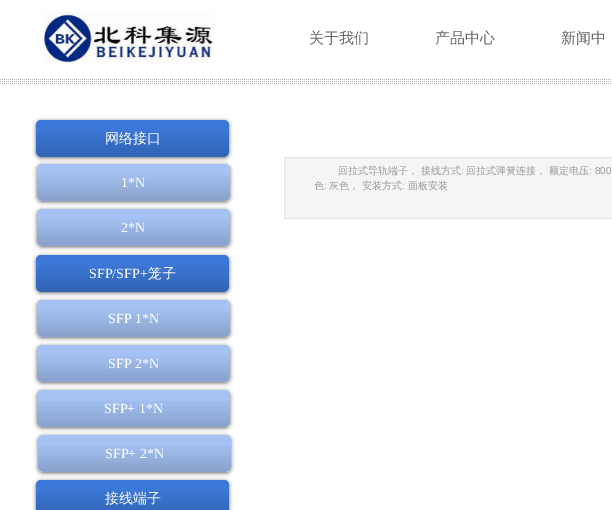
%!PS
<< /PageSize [612 510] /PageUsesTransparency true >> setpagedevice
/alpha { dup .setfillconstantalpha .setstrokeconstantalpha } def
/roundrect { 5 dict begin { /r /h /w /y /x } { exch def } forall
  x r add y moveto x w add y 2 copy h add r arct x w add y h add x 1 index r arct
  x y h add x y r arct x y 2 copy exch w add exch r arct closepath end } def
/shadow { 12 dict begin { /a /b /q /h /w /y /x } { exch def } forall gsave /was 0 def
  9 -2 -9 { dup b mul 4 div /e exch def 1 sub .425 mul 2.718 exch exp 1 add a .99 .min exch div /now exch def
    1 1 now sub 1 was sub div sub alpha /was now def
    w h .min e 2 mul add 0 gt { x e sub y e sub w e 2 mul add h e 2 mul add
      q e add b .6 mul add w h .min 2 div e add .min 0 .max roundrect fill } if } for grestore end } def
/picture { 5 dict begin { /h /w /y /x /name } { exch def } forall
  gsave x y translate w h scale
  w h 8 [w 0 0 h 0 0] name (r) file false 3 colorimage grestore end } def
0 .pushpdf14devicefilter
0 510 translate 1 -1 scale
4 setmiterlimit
1 setgray
0 0 612 510 rectfill
(img1.rgb) 43 12 171 51 picture
/WenQuanYiZenHei-Medium [15 0 0 -15 0 0] selectfont
0.4 setgray
309 43 moveto (关于我们) show
435 43 moveto (产品中心) show
561 43 moveto (新闻中) show
(img2.rgb) 0 79 611 5 picture
0 setgray
37 165 193 37 5 2 0.6 shadow
0.643 0.761 0.957 setrgbcolor
37 164 193 37 5 roundrect fill
0 setgray
36 121 193 37 5 2 0.6 shadow
0.235 0.471 0.847 setrgbcolor
36 120 193 37 5 roundrect fill
(img3.rgb) 36 131 193 26 picture
/WenQuanYiZenHei-Medium [14 0 0 -14 0 0] selectfont
1 setgray
105 143 moveto (网络接口) show
(img4.rgb) 37 175 193 26 picture
/LiberationSerif-Regular [14 0 0 -14 0 0] selectfont
121 187 moveto (1*N) show
0.961 setgray
newpath 284.5 157.5 moveto 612.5 157.5 lineto 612.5 218.5 lineto 284.5 218.5 lineto closepath gsave fill grestore
0.898 setgray
stroke
/WenQuanYiZenHei-Medium [10 0 0 -10 0 0] selectfont
0.596 setgray
338 174 moveto (回拉式导轨端子， 接线方式) show
/LiberationSans-Regular [10 0 0 -10 0 0] selectfont
461 174 moveto (:) show
/WenQuanYiZenHei-Medium [10 0 0 -10 0 0] selectfont
466 174 moveto (回拉式弹簧连接， 额定电压) show
/LiberationSans-Regular [10 0 0 -10 0 0] selectfont
589 174 moveto (: 800) show
/WenQuanYiZenHei-Medium [10 0 0 -10 0 0] selectfont
314 189 moveto (色) show
/LiberationSans-Regular [10 0 0 -10 0 0] selectfont
324 189 moveto (:) show
/WenQuanYiZenHei-Medium [10 0 0 -10 0 0] selectfont
329 189 moveto (灰色， 安装方式) show
/LiberationSans-Regular [10 0 0 -10 0 0] selectfont
402 189 moveto (:) show
/WenQuanYiZenHei-Medium [10 0 0 -10 0 0] selectfont
408 189 moveto (面板安装) show
0 setgray
37 210 193 37 5 2 0.6 shadow
0.643 0.761 0.957 setrgbcolor
37 209 193 37 5 roundrect fill
(img4.rgb) 37 220 193 26 picture
/LiberationSerif-Regular [14 0 0 -14 0 0] selectfont
1 setgray
121 232 moveto (2*N) show
0 setgray
36 256 193 37 5 2 0.6 shadow
0.235 0.471 0.847 setrgbcolor
36 255 193 37 5 roundrect fill
(img3.rgb) 36 266 193 26 picture
1 setgray
89 278 moveto (SFP/SFP+) show
/WenQuanYiZenHei-Medium [14 0 0 -14 0 0] selectfont
148 278 moveto (笼子) show
0 setgray
37 301 193 37 5 2 0.6 shadow
0.643 0.761 0.957 setrgbcolor
37 300 193 37 5 roundrect fill
(img4.rgb) 37 311 193 26 picture
/LiberationSerif-Regular [14 0 0 -14 0 0] selectfont
1 setgray
108 323 moveto (SFP 1*N) show
0 setgray
37 346 193 37 5 2 0.6 shadow
0.643 0.761 0.957 setrgbcolor
37 345 193 37 5 roundrect fill
(img4.rgb) 37 356 193 26 picture
1 setgray
108 368 moveto (SFP 2*N) show
0 setgray
37 391 193 37 5 2 0.6 shadow
0.643 0.761 0.957 setrgbcolor
37 390 193 37 5 roundrect fill
(img4.rgb) 37 401 193 26 picture
1 setgray
104 413 moveto (SFP+ 1*N) show
0 setgray
38 436 193 37 5 2 0.6 shadow
0.643 0.761 0.957 setrgbcolor
38 435 193 37 5 roundrect fill
(img4.rgb) 38 446 193 26 picture
1 setgray
105 458 moveto (SFP+ 2*N) show
0 setgray
36 481 193 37 5 2 0.6 shadow
0.235 0.471 0.847 setrgbcolor
newpath 41 480 moveto 224 480 lineto 227 480 229 482 229 485 curveto 229 510 lineto 36 510 lineto 36 485 lineto 36 482 38 480 41 480 curveto closepath fill
(img5.rgb) 36 491 193 19 picture
/WenQuanYiZenHei-Medium [14 0 0 -14 0 0] selectfont
1 setgray
105 503 moveto (接线端子) show
.poppdf14devicefilter showpage
